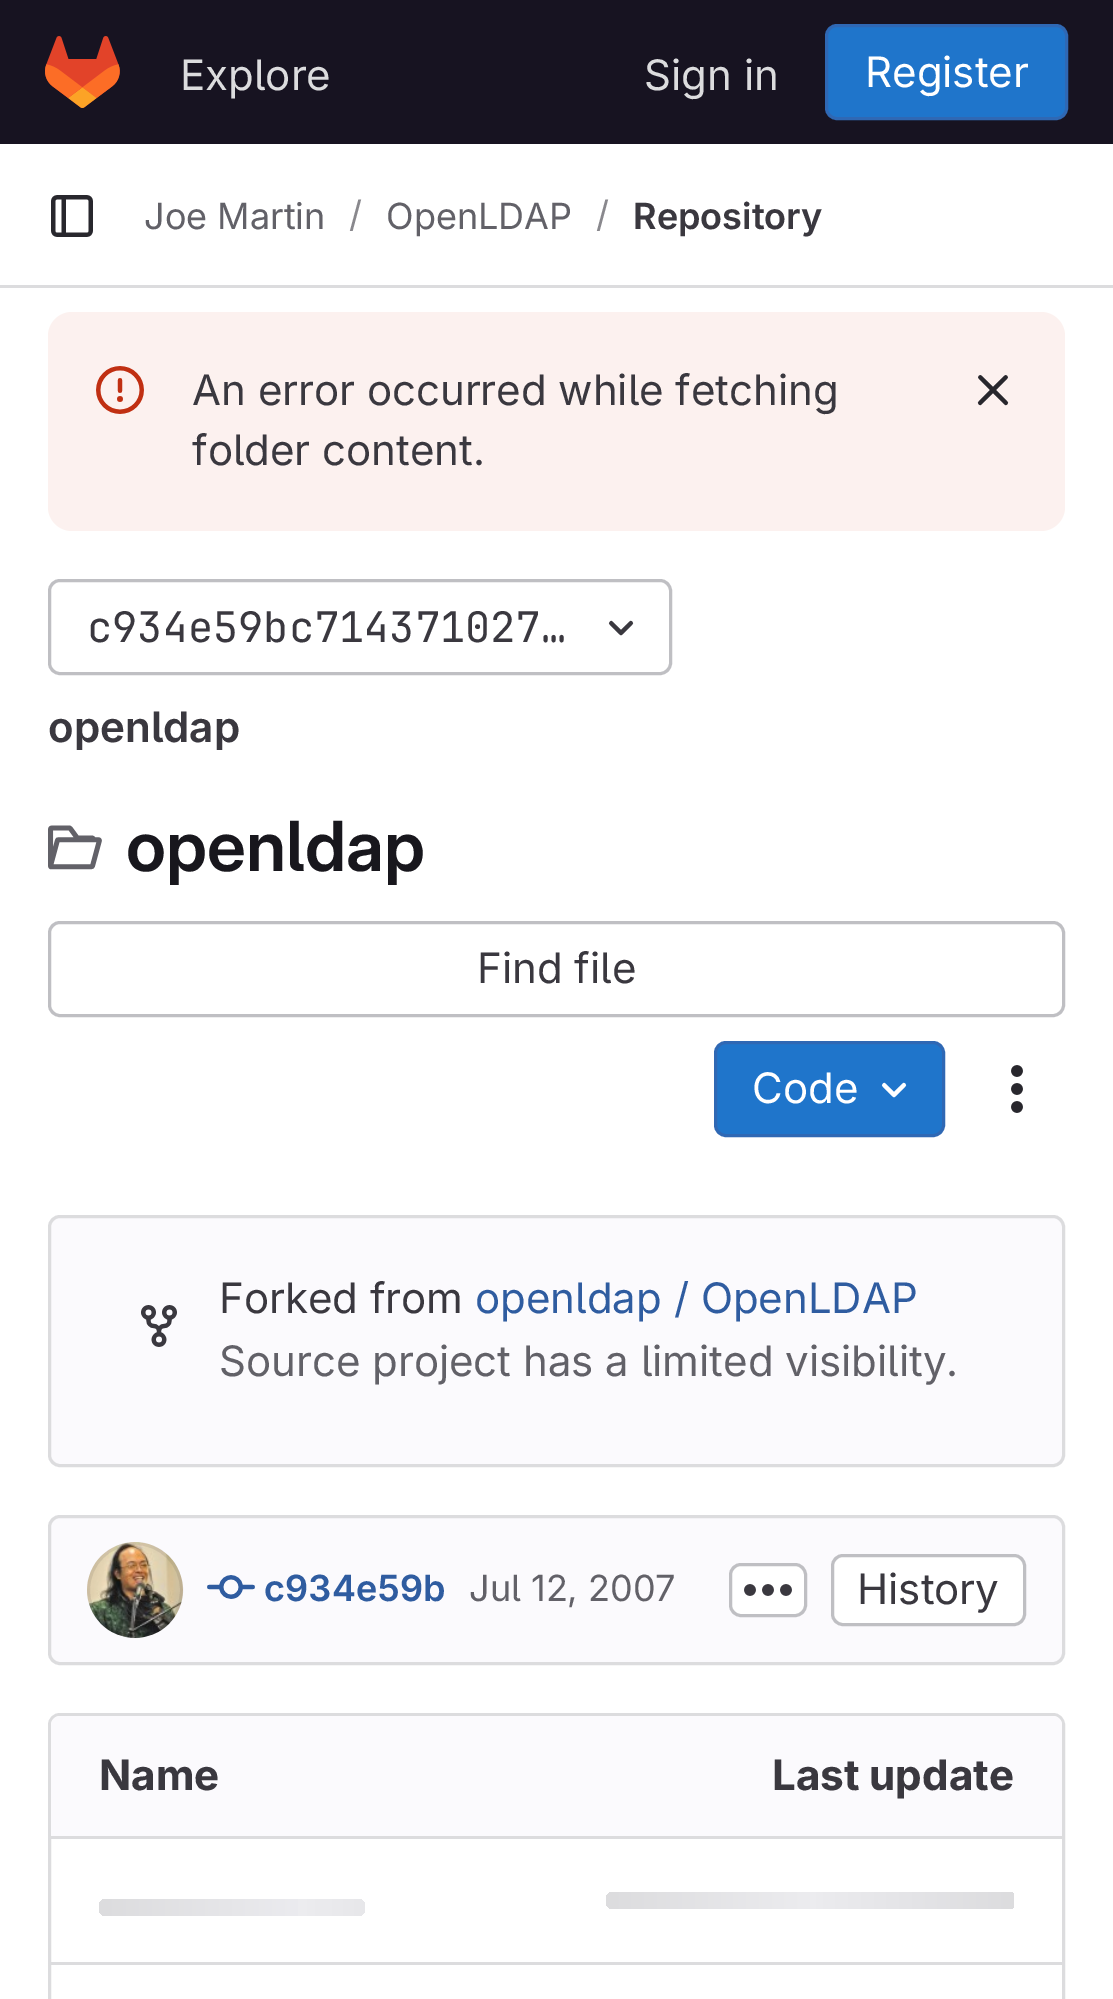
%!PS
<< /PageSize [1113 1999] /PageUsesTransparency true >> setpagedevice
/alpha { dup .setfillconstantalpha .setstrokeconstantalpha } def
/roundrect { 5 dict begin { /r /h /w /y /x } { exch def } forall
  x r add y moveto x w add y 2 copy h add r arct x w add y h add x 1 index r arct
  x y h add x y r arct x y 2 copy exch w add exch r arct closepath end } def
/picture { 5 dict begin { /h /w /y /x /name } { exch def } forall
  gsave x y translate w h scale
  w h 8 [w 0 0 h 0 0] name (r) file false 3 colorimage grestore end } def
0 .pushpdf14devicefilter
0 1999 translate 1 -1 scale
4 setmiterlimit
1 setgray
0 0 1113 1999 rectfill
0.09 0.075 0.129 setrgbcolor
0 0 1113 144 rectfill
(img1.rgb) 45 36 75 72 picture
/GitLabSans-Regular [42 0 0 -42 0 0] selectfont
0.863 0.863 0.871 setrgbcolor
180 90 moveto (Explore) show
644 90 moveto (Sign in) show
0.122 0.459 0.796 setrgbcolor
826.5 25.5 240 93 10.5 roundrect gsave fill grestore
0.184 0.408 0.706 setrgbcolor
3 setlinewidth
stroke
1 setgray
865 87 moveto (Register) show
0.863 0.863 0.871 setrgbcolor
0 285 1113 3 rectfill
(img2.rgb) 51 195 42 42 picture
/GitLabSans-Regular [36 0 0 -36 0 0] selectfont
0.384 0.38 0.408 setrgbcolor
144 229 moveto (Joe Martin) show
0.537 0.533 0.553 setrgbcolor
349 227 moveto (/) show
0.384 0.38 0.408 setrgbcolor
386 229 moveto (OpenLDAP) show
0.537 0.533 0.553 setrgbcolor
596 227 moveto (/) show
/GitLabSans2-SemiBold [36 0 0 -36 0 0] selectfont
0.227 0.22 0.247 setrgbcolor
633 229 moveto (Repository) show
0.988 0.945 0.937 setrgbcolor
48 312 1017 219 24 roundrect fill
(img3.rgb) 96 366 48 48 picture
/GitLabSans-Regular [42 0 0 -42 0 0] selectfont
0.227 0.22 0.247 setrgbcolor
192 405 moveto (An error occurred while fetching) show
192 465 moveto (folder content.) show
(img4.rgb) 977 375 32 31 picture
0.749 0.749 0.765 setrgbcolor
49.5 580.5 621 93 10.5 roundrect stroke
/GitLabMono-Regular [42 0 0 -42 0 0] selectfont
0.227 0.22 0.247 setrgbcolor
87 642 moveto (c934e59bc714371027…) show
(img5.rgb) 608 620 26 16 picture
gsave
48 699 192 51 12 roundrect clip newpath
/GitLabSans2-SemiBold [42 0 0 -42 0 0] selectfont
48 742 moveto (openldap) show
grestore
(img6.rgb) 48 825 54 45 picture
/GitLabSans-SemiBold [69 0 0 -69 0 0] selectfont
0.094 0.09 0.114 setrgbcolor
126 871 moveto (openldap) show
0.749 0.749 0.765 setrgbcolor
49.5 922.5 1014 93 10.5 roundrect stroke
/GitLabSans-Regular [42 0 0 -42 0 0] selectfont
0.227 0.22 0.247 setrgbcolor
477 983 moveto (Find file) show
0.122 0.459 0.796 setrgbcolor
715.5 1042.5 228 93 10.5 roundrect gsave fill grestore
0.184 0.408 0.706 setrgbcolor
stroke
1 setgray
752 1103 moveto (Code) show
(img7.rgb) 881 1082 26 16 picture
(img8.rgb) 1011 1065 12 48 picture
0.984 0.98 0.992 setrgbcolor
49.5 1216.5 1014 249 10.5 roundrect gsave fill grestore
0.863 0.863 0.871 setrgbcolor
stroke
(img9.rgb) 141 1305 36 42 picture
0.227 0.22 0.247 setrgbcolor
219 1313 moveto (Forked from) show
0.184 0.361 0.627 setrgbcolor
475 1313 moveto (openldap / OpenLDAP) show
0.384 0.38 0.408 setrgbcolor
219 1376 moveto (Source project has a limited visibility.) show
0.984 0.98 0.992 setrgbcolor
49.5 1516.5 1014 147 10.5 roundrect gsave fill grestore
0.863 0.863 0.871 setrgbcolor
stroke
(img10.rgb) 87 1542 96 96 picture
0.08 alpha
0.02 0.02 0.024 setrgbcolor
newpath 135 1590 46.5 0 360 arc closepath stroke
1 alpha
(img11.rgb) 207 1575 48 24 picture
/GitLabSans2-SemiBold [36 0 0 -36 0 0] selectfont
0.184 0.361 0.627 setrgbcolor
264 1601 moveto (c934e59b) show
/GitLabSans-Regular [36 0 0 -36 0 0] selectfont
0.384 0.38 0.408 setrgbcolor
469 1601 moveto (Jul 12, 2007) show
1 setgray
730.5 1564.5 75 51 10.5 roundrect gsave fill grestore
0.749 0.749 0.765 setrgbcolor
stroke
(img12.rgb) 744 1584 48 12 picture
1 setgray
832.5 1555.5 192 69 10.5 roundrect gsave fill grestore
0.749 0.749 0.765 setrgbcolor
stroke
/GitLabSans-Regular [42 0 0 -42 0 0] selectfont
0.227 0.22 0.247 setrgbcolor
857 1604 moveto (History) show
0.863 0.863 0.871 setrgbcolor
49.5 1714.5 1014 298 10.5 roundrect stroke
0.984 0.98 0.992 setrgbcolor
newpath 60 1716 moveto 558 1716 lineto 558 1836 lineto 51 1836 lineto 51 1725 lineto 51 1720 55 1716 60 1716 curveto closepath fill
/GitLabSans-Bold [42 0 0 -42 0 0] selectfont
0.227 0.22 0.247 setrgbcolor
99 1790 moveto (Name) show
0.984 0.98 0.992 setrgbcolor
newpath 558 1716 moveto 1053 1716 lineto 1058 1716 1062 1720 1062 1725 curveto 1062 1836 lineto 558 1836 lineto closepath fill
0.227 0.22 0.247 setrgbcolor
772 1790 moveto (Last update) show
0.863 0.863 0.871 setrgbcolor
51 1962 1011 3 rectfill
51 1836 1011 3 rectfill
gsave
606 1892 410 17 7 roundrect clip newpath
gsave newpath 613 1892 moveto 1014 1892 lineto 1014 1909 lineto 613 1909 lineto 609 1909 606 1906 606 1902 curveto 606 1899 lineto 606 1895 609 1892 613 1892 curveto closepath clip newpath
<< /ShadingType 2 /ColorSpace /DeviceRGB /Coords [606 1892 1016 1892] /Extend [true true] /Function << /FunctionType 3 /Domain [0 1] /Functions [<< /FunctionType 2 /Domain [0 1] /C0 [0.863 0.863 0.871] /C1 [0.925 0.925 0.937] /N 1 >> << /FunctionType 2 /Domain [0 1] /C0 [0.925 0.925 0.937] /C1 [0.863 0.863 0.871] /N 1 >>] /Bounds [0.5] /Encode [0 1 0 1] >> >> shfill grestore
grestore
gsave 99 1899 266 17 7 roundrect clip newpath
<< /ShadingType 2 /ColorSpace /DeviceRGB /Coords [99 1899 508 1899] /Extend [true true] /Function << /FunctionType 3 /Domain [0 1] /Functions [<< /FunctionType 2 /Domain [0 1] /C0 [0.863 0.863 0.871] /C1 [0.925 0.925 0.937] /N 1 >> << /FunctionType 2 /Domain [0 1] /C0 [0.925 0.925 0.937] /C1 [0.863 0.863 0.871] /N 1 >>] /Bounds [0.5] /Encode [0 1 0 1] >> >> shfill grestore
.poppdf14devicefilter showpage
